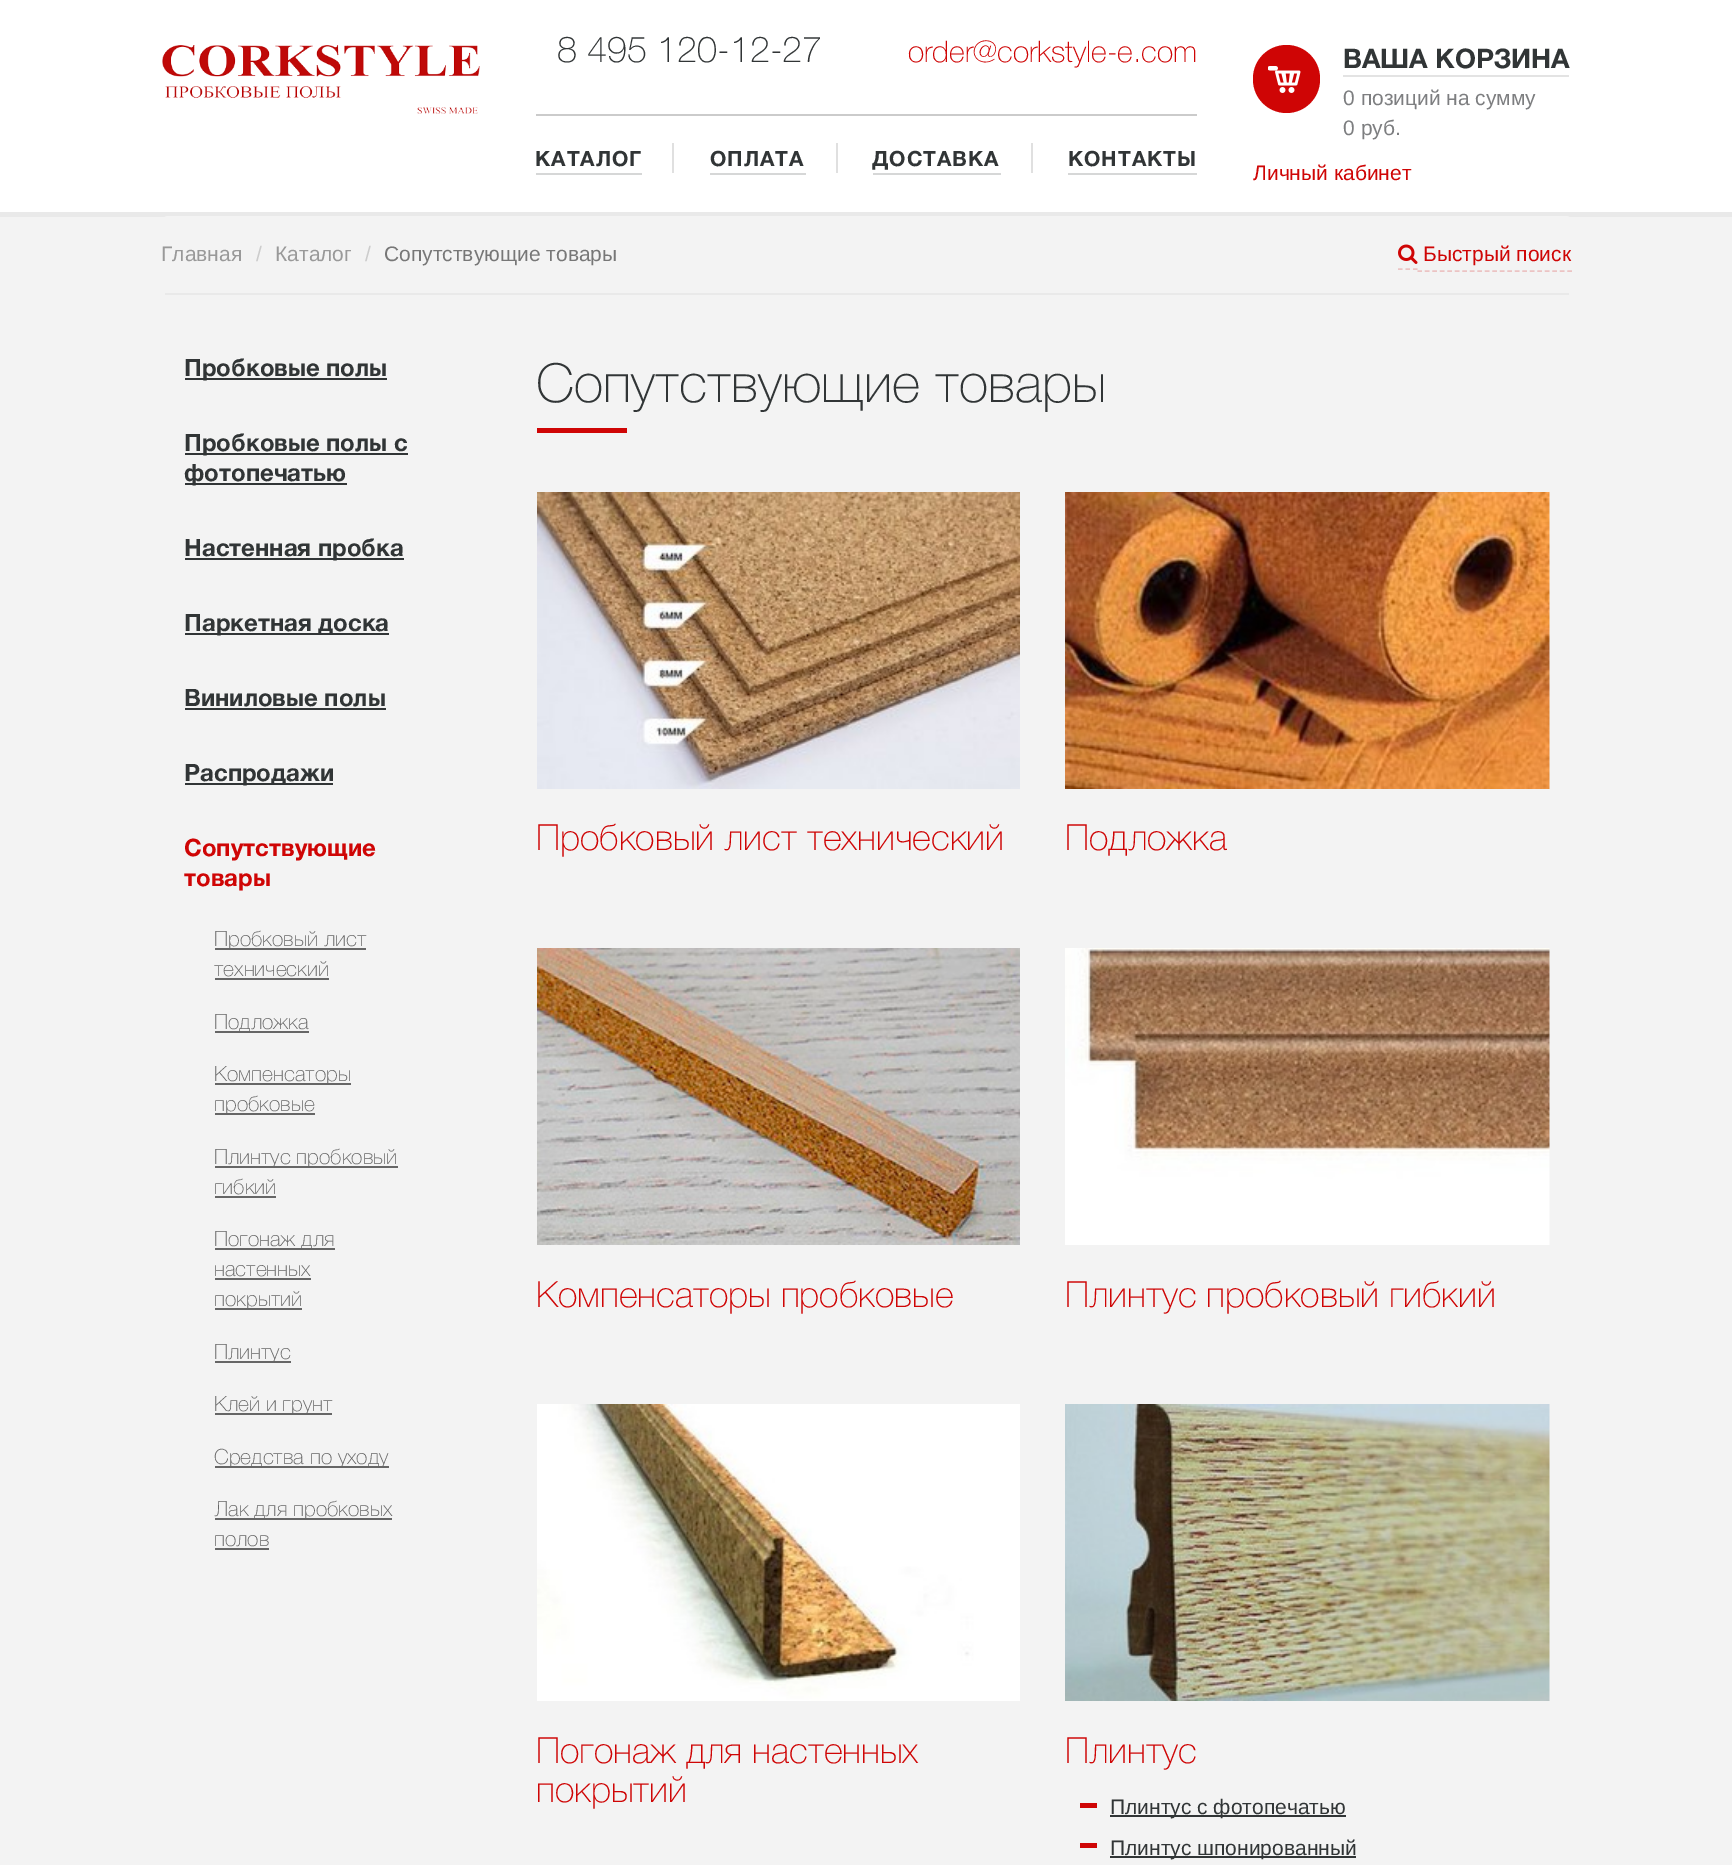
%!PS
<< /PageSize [1732 1865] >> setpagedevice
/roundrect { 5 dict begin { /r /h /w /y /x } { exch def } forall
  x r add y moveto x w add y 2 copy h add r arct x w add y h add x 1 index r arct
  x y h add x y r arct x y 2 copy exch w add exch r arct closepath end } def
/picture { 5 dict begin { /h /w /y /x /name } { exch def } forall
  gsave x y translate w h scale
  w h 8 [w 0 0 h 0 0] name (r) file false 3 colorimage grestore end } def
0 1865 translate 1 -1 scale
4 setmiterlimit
0.953 setgray
0 0 1732 1865 rectfill
1 setgray
0 0 1732 212 rectfill
(img1.rgb) 162 45 318 69 picture
/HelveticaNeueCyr-Thin [36 0 0 -36 0 0] selectfont
0.192 0.208 0.212 setrgbcolor
557 62 moveto (8 495 120-12-27) show
/HelveticaNeueCyr-Thin [30 0 0 -30 0 0] selectfont
0.812 0.02 0.02 setrgbcolor
908 62 moveto (order@corkstyle-e.com) show
0.796 setgray
536 114 661 2 rectfill
0.878 setgray
672 143 2 30 rectfill
0.839 0.843 0.843 setrgbcolor
536 173 106 2 rectfill
/HelveticaNeueCyr-Bold [21 0 0 -21 0 0] selectfont
0.192 0.208 0.212 setrgbcolor
535 166 moveto 1 0 (КАТАЛОГ) ashow
0.878 setgray
836 143 2 30 rectfill
0.839 0.843 0.843 setrgbcolor
710 173 96 2 rectfill
0.192 0.208 0.212 setrgbcolor
710 166 moveto 1 0 (ОПЛАТА) ashow
0.878 setgray
1031 143 2 30 rectfill
0.839 0.843 0.843 setrgbcolor
873 173 128 2 rectfill
0.192 0.208 0.212 setrgbcolor
872 166 moveto 1 0 (ДОСТАВКА) ashow
0.839 0.843 0.843 setrgbcolor
1068 173 129 2 rectfill
0.192 0.208 0.212 setrgbcolor
1068 166 moveto 1 0 (КОНТАКТЫ) ashow
0.812 0.02 0.02 setrgbcolor
1253 45 67 68 33.5 roundrect fill
(img2.rgb) 1268 66 33 27 picture
0.89 setgray
1343 75 226 2 rectfill
/HelveticaNeueCyr-Bold [27 0 0 -27 0 0] selectfont
0.192 0.208 0.212 setrgbcolor
1343 68 moveto (ВАША КОРЗИНА) show
/LiberationSans-Regular [21 0 0 -21 0 0] selectfont
0.49 0.494 0.502 setrgbcolor
1343 105 moveto (0 позиций на сумму) show
1343 135 moveto (0 руб.) show
0.812 0.02 0.02 setrgbcolor
1253 180 moveto (Личный кабинет) show
0.914 setgray
0 212 1732 5 rectfill
0.953 setgray
162 216 1410 78 6 roundrect fill
0.914 setgray
165 293 1404 2 rectfill
0.6 setgray
161 261 moveto (Главная) show
0.8 setgray
256 261 moveto (/) show
0.6 setgray
275 261 moveto (Каталог) show
0.8 setgray
365 261 moveto (/) show
0.467 setgray
384 261 moveto (Сопутствующие товары) show
0.925 0.765 0.765 setrgbcolor
1.5 setlinewidth
newpath 1398 269 moveto 1402.5 269 lineto 1405.5 269 moveto 1410 269 lineto 1413 269 moveto 1417.5 269 lineto stroke
[4.5 3] 0 setdash
newpath 1417.5 271 moveto 1572 271 lineto stroke
(img3.rgb) 1398 244 20 20 picture
0.812 0.02 0.02 setrgbcolor
1423 261 moveto (Быстрый поиск) show
0.192 0.208 0.212 setrgbcolor
185 378 202 2 rectfill
/HelveticaNeueCyr-Bold [24 0 0 -24 0 0] selectfont
184 376 moveto (Пробковые полы) show
185 453 223 2 rectfill
184 451 moveto (Пробковые полы с) show
185 483 162 2 rectfill
184 481 moveto (фотопечатью) show
185 558 219 2 rectfill
184 556 moveto (Настенная пробка) show
185 633 204 2 rectfill
184 631 moveto (Паркетная доска) show
184 706 moveto (Виниловые полы) show
185 708 201 2 rectfill
185 783 148 2 rectfill
184 781 moveto (Распродажи) show
0.812 0.02 0.02 setrgbcolor
184 856 moveto (Cопутствующие) show
184 886 moveto (товары) show
0.4 setgray
215 948 151 2 rectfill
/HelveticaNeueCyr-Thin [21 0 0 -21 0 0] selectfont
214 946 moveto (Пробковый лист) show
214 976 moveto (технический) show
215 978 114 2 rectfill
215 1031 94 2 rectfill
214 1029 moveto (Подложка) show
215 1083 136 2 rectfill
214 1081 moveto (Компенсаторы) show
215 1113 100 2 rectfill
214 1111 moveto (пробковые) show
215 1166 183 2 rectfill
214 1164 moveto (Плинтус пробковый) show
214 1194 moveto (гибкий) show
215 1196 61 2 rectfill
215 1248 120 2 rectfill
214 1246 moveto (Погонаж для) show
214 1276 moveto (настенных) show
215 1278 96 2 rectfill
215 1308 87 2 rectfill
214 1306 moveto (покрытий) show
215 1361 76 2 rectfill
214 1359 moveto (Плинтус) show
215 1413 117 2 rectfill
214 1411 moveto (Клей и грунт) show
215 1466 174 2 rectfill
214 1464 moveto (Средства по уходу) show
215 1518 177 2 rectfill
214 1516 moveto (Лак для пробковых) show
214 1546 moveto (полов) show
215 1548 54 2 rectfill
/HelveticaNeueCyr-Thin [54 0 0 -54 0 0] selectfont
0.192 0.208 0.212 setrgbcolor
536 402 moveto (Сопутствующие товары) show
0.812 0.02 0.02 setrgbcolor
537 428 90 5 rectfill
(img4.rgb) 537 492 483 297 picture
/HelveticaNeueCyr-Thin [36 0 0 -36 0 0] selectfont
536 850 moveto (Пробковый лист технический) show
(img5.rgb) 1065 492 485 297 picture
1065 850 moveto (Подложка) show
(img6.rgb) 537 948 483 297 picture
536 1307 moveto (Компенсаторы пробковые) show
(img7.rgb) 1065 948 485 297 picture
1065 1307 moveto (Плинтус пробковый гибкий) show
(img8.rgb) 537 1404 483 297 picture
536 1763 moveto (Погонаж для настенных) show
536 1802 moveto (покрытий) show
(img9.rgb) 1065 1404 485 297 picture
1065 1763 moveto (Плинтус) show
1080 1803 17 5 rectfill
0.192 0.208 0.212 setrgbcolor
1110 1815 236 2 rectfill
/LiberationSans-Regular [21 0 0 -21 0 0] selectfont
1110 1814 moveto (Плинтус с фотопечатью) show
0.812 0.02 0.02 setrgbcolor
1080 1843 17 5 rectfill
0.192 0.208 0.212 setrgbcolor
1110 1856 246 2 rectfill
1110 1855 moveto (Плинтус шпонированный) show
showpage
